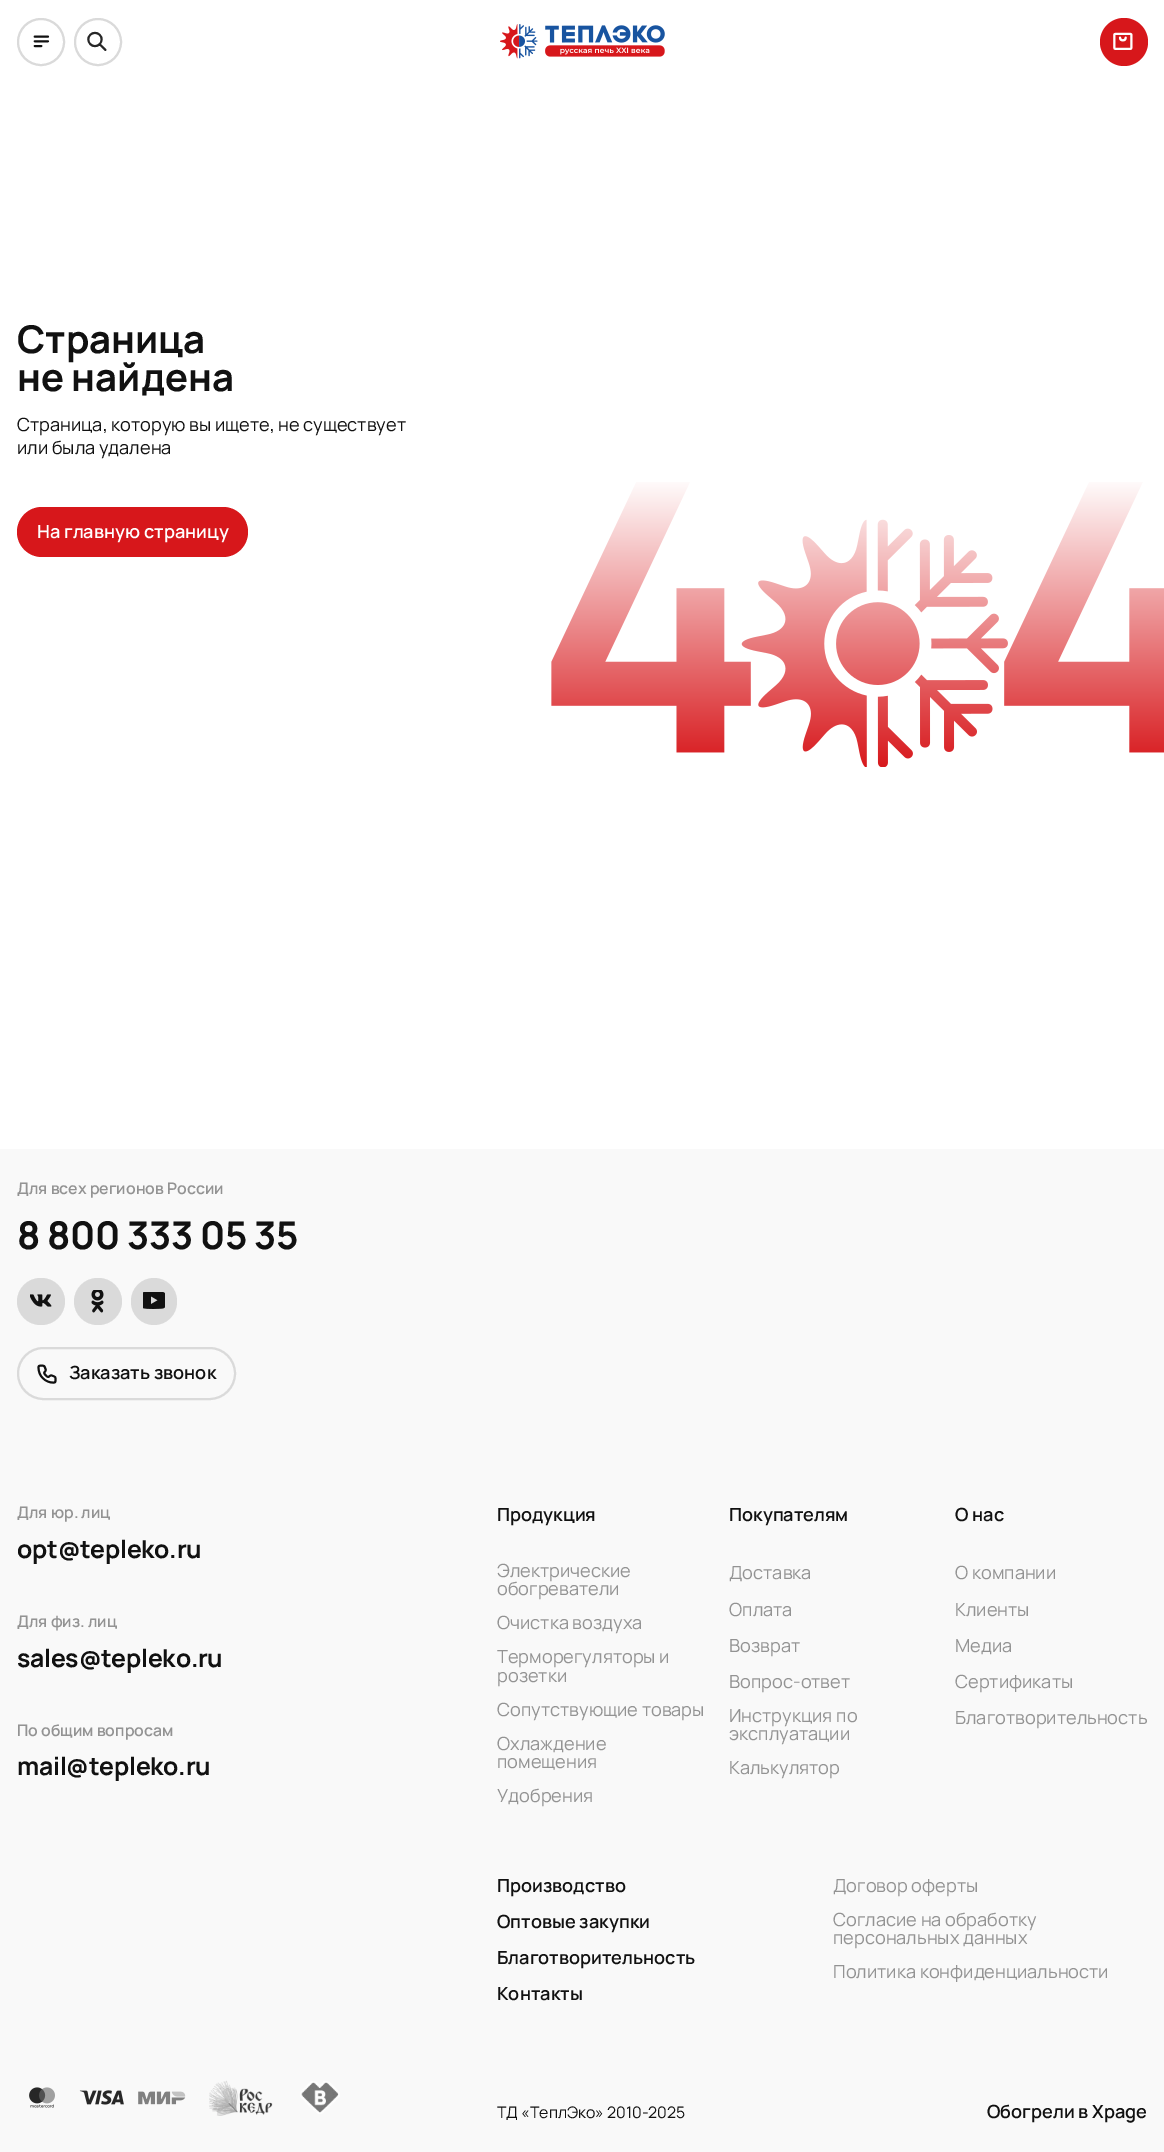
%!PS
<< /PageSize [1164 2152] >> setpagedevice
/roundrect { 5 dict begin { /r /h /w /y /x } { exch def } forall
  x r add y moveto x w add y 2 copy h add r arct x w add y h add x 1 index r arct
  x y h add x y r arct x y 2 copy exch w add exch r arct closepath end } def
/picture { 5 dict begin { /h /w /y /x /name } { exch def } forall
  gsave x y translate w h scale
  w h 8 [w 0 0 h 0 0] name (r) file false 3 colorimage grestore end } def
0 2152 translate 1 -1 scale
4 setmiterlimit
1 setgray
0 0 1164 2152 rectfill
0.855 setgray
2 setlinewidth
newpath 41 42 23 0 360 arc closepath stroke
(img1.rgb) 33 35 17 13 picture
newpath 98 42 23 0 360 arc closepath stroke
(img2.rgb) 87 31 20 20 picture
(img3.rgb) 500 24 165 35 picture
0.843 0.09 0.106 setrgbcolor
newpath 1124 42 24 0 360 arc closepath fill
(img4.rgb) 1113 32 20 18 picture
/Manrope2-ExtraLight [38.25 0 0 -38.25 0 0] selectfont
0.067 setgray
17 353 moveto (Страница) show
17 391 moveto (не найдена) show
/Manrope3-ExtraLight [18.2 0 0 -18.2 0 0] selectfont
17 431 moveto (Страница, которую вы ищете, не существует) show
17 454 moveto (или была удалена) show
0.843 0.09 0.106 setrgbcolor
17 507 231 50 25 roundrect fill
/Manrope-ExtraLight [18.2 0 0 -18.2 0 0] selectfont
1 setgray
37 538 moveto (На главную страницу) show
(img5.rgb) 551 482 613 285 picture
0.976 setgray
0 1149 1164 1003 rectfill
/Manrope-ExtraLight [15.9 0 0 -15.9 0 0] selectfont
0.576 setgray
17 1194 moveto (Для всех регионов России) show
/Manrope2-ExtraLight [38.25 0 0 -38.25 0 0] selectfont
0.067 setgray
17 1249 moveto -0.4 0 (8 800 333 05 35) ashow
0.855 setgray
17 1278 48 47 23.5 roundrect fill
(img6.rgb) 30 1294 22 13 picture
74 1278 48 47 23.5 roundrect fill
(img7.rgb) 91 1290 13 23 picture
131 1278 46 47 23 roundrect fill
(img8.rgb) 143 1292 22 17 picture
18 1348 217 51 25.5 roundrect stroke
(img9.rgb) 37 1364 20 20 picture
/Manrope-ExtraLight [18.2 0 0 -18.2 0 0] selectfont
0.067 setgray
69 1379 moveto (Заказать звонок) show
/Manrope-ExtraLight [15.9 0 0 -15.9 0 0] selectfont
0.576 setgray
17 1518 moveto (Для юр. лиц) show
/Manrope2-ExtraLight [24.75 0 0 -24.75 0 0] selectfont
0.067 setgray
17 1558 moveto -0.25 0 (opt@tepleko.ru) ashow
/Manrope-ExtraLight [15.9 0 0 -15.9 0 0] selectfont
0.576 setgray
17 1627 moveto (Для физ. лиц) show
/Manrope2-ExtraLight [24.75 0 0 -24.75 0 0] selectfont
0.067 setgray
17 1667 moveto -0.25 0 (sales@tepleko.ru) ashow
/Manrope-ExtraLight [15.9 0 0 -15.9 0 0] selectfont
0.576 setgray
17 1736 moveto (По общим вопросам) show
/Manrope2-ExtraLight [24.75 0 0 -24.75 0 0] selectfont
0.067 setgray
17 1775 moveto -0.25 0 (mail@tepleko.ru) ashow
/Manrope-ExtraLight [18.2 0 0 -18.2 0 0] selectfont
497 1521 moveto (Продукция) show
/Manrope3-ExtraLight [18.2 0 0 -18.2 0 0] selectfont
0.576 setgray
497 1577 moveto (Электрические) show
497 1595 moveto (обогреватели) show
497 1629 moveto (Очистка воздуха) show
497 1663 moveto (Терморегуляторы и) show
497 1682 moveto (розетки) show
497 1716 moveto (Сопутствующие товары) show
497 1750 moveto (Охлаждение) show
497 1768 moveto (помещения) show
497 1802 moveto (Удобрения) show
/Manrope-ExtraLight [18.2 0 0 -18.2 0 0] selectfont
0.067 setgray
729 1521 moveto (Покупателям) show
/Manrope3-ExtraLight [18.2 0 0 -18.2 0 0] selectfont
0.576 setgray
729 1579 moveto (Доставка) show
729 1616 moveto (Оплата) show
729 1652 moveto (Возврат) show
729 1688 moveto (Вопрос-ответ) show
729 1722 moveto (Инструкция по) show
729 1740 moveto (эксплуатации) show
729 1774 moveto (Калькулятор) show
/Manrope-ExtraLight [18.2 0 0 -18.2 0 0] selectfont
0.067 setgray
955 1521 moveto (О нас) show
/Manrope3-ExtraLight [18.2 0 0 -18.2 0 0] selectfont
0.576 setgray
955 1579 moveto (О компании) show
955 1616 moveto (Клиенты) show
955 1652 moveto (Медиа) show
955 1688 moveto (Сертификаты) show
955 1724 moveto (Благотворительность) show
/Manrope-ExtraLight [18.2 0 0 -18.2 0 0] selectfont
0.067 setgray
497 1892 moveto (Производство) show
497 1928 moveto (Оптовые закупки) show
497 1964 moveto (Благотворительность) show
497 2000 moveto (Контакты) show
/Manrope3-ExtraLight [18.2 0 0 -18.2 0 0] selectfont
0.576 setgray
833 1892 moveto (Договор оферты) show
833 1926 moveto (Согласие на обработку) show
833 1944 moveto (персональных данных) show
833 1978 moveto (Политика конфиденциальности) show
(img10.rgb) 29 2087 26 21 picture
(img11.rgb) 79 2090 45 15 picture
(img12.rgb) 138 2091 48 14 picture
(img13.rgb) 209 2080 64 36 picture
(img14.rgb) 300 2081 40 33 picture
/Manrope3-ExtraLight [15.9 0 0 -15.9 0 0] selectfont
0.067 setgray
497 2118 moveto (ТД «ТеплЭко» 2010-2025) show
/Manrope-ExtraLight [18.2 0 0 -18.2 0 0] selectfont
987 2118 moveto (Обогрели в Xpage) show
showpage
